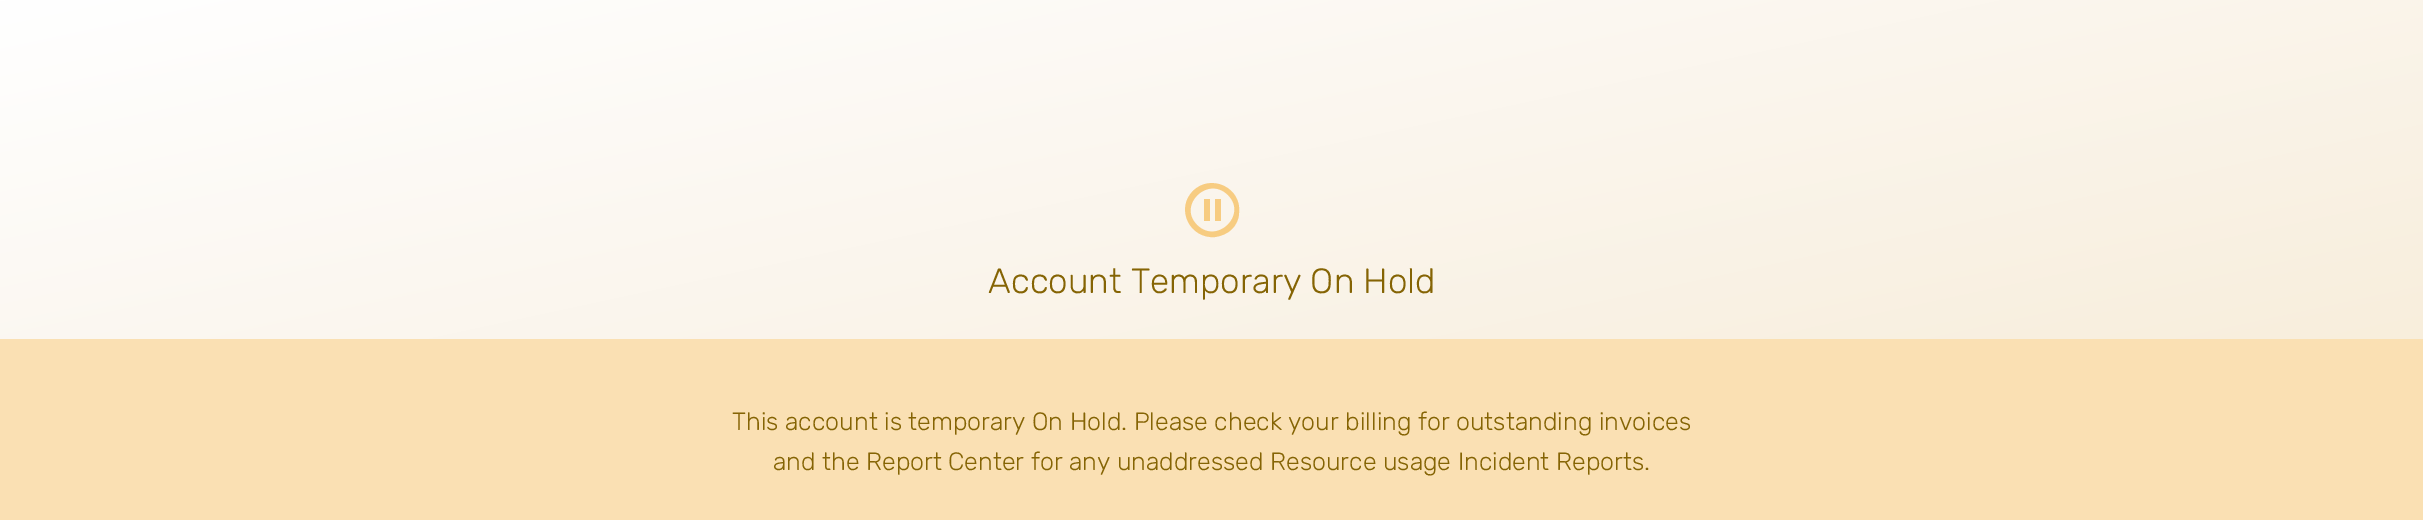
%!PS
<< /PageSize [2423 520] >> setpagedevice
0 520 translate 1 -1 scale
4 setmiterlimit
1 setgray
0 0 2423 520 rectfill
gsave newpath 0 0 moveto 2423 0 lineto 2423 339 lineto 0 339 lineto closepath clip newpath
<< /ShadingType 2 /ColorSpace /DeviceRGB /Coords [1105 -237 1319 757] /Extend [true true] /Function << /FunctionType 2 /Domain [0 1] /C0 [1 1 1] /C1 [0.965 0.918 0.835] /N 1 >> >> shfill grestore
0.969 0.8 0.506 setrgbcolor
newpath 1215 221 moveto 1215 199 lineto 1221 199 lineto 1221 221 lineto closepath 1197 225 moveto 1217 245 1248 215 1228 195 curveto 1208 175 1177 205 1197 225 curveto closepath 1193 191 moveto 1211 173 1242 188 1239 213 curveto 1239 219 1236 225 1232 229 curveto 1227 234 1221 236 1215 237 curveto 1190 239 1175 209 1193 191 curveto closepath 1204 221 moveto 1204 199 lineto 1210 199 lineto 1210 221 lineto closepath fill
/Rubik-Light [35 0 0 -35 0 0] selectfont
0.522 0.392 0.016 setrgbcolor
988 293 moveto (Account Temporary On Hold) show
0.98 0.878 0.702 setrgbcolor
0 339 2423 181 rectfill
/Rubik-Light [25 0 0 -25 0 0] selectfont
0.522 0.392 0.016 setrgbcolor
732 430 moveto (This account is temporary On Hold. Please check your billing for outstanding invoices) show
773 470 moveto (and the Report Center for any unaddressed Resource usage Incident Reports.) show
showpage
